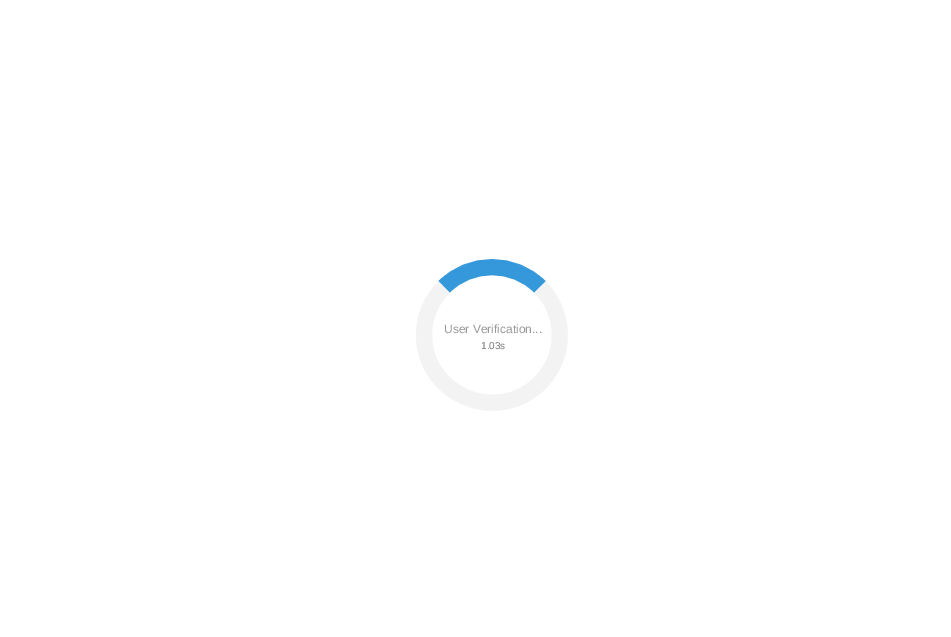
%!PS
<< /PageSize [951 637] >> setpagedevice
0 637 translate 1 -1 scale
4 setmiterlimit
1 setgray
0 0 951 637 rectfill
0.204 0.596 0.859 setrgbcolor
16 setlinewidth
newpath 444 287 moveto 470 260.5 514 260.5 540 287 curveto stroke
0.953 setgray
newpath 540 287 moveto 556 303 563 326 558.5 348.5 curveto 556 361.5 549.5 373.5 540 383 curveto 497.5 425.5 424 395 424 335 curveto 424 317 431.5 299.5 444 287 curveto stroke
/LiberationSans-Regular [12 0 0 -12 0 0] selectfont
0.6 setgray
444 333 moveto (User Verification...) show
/LiberationSans-Regular [10 0 0 -10 0 0] selectfont
0.467 setgray
481 349 moveto (1.03s) show
showpage
